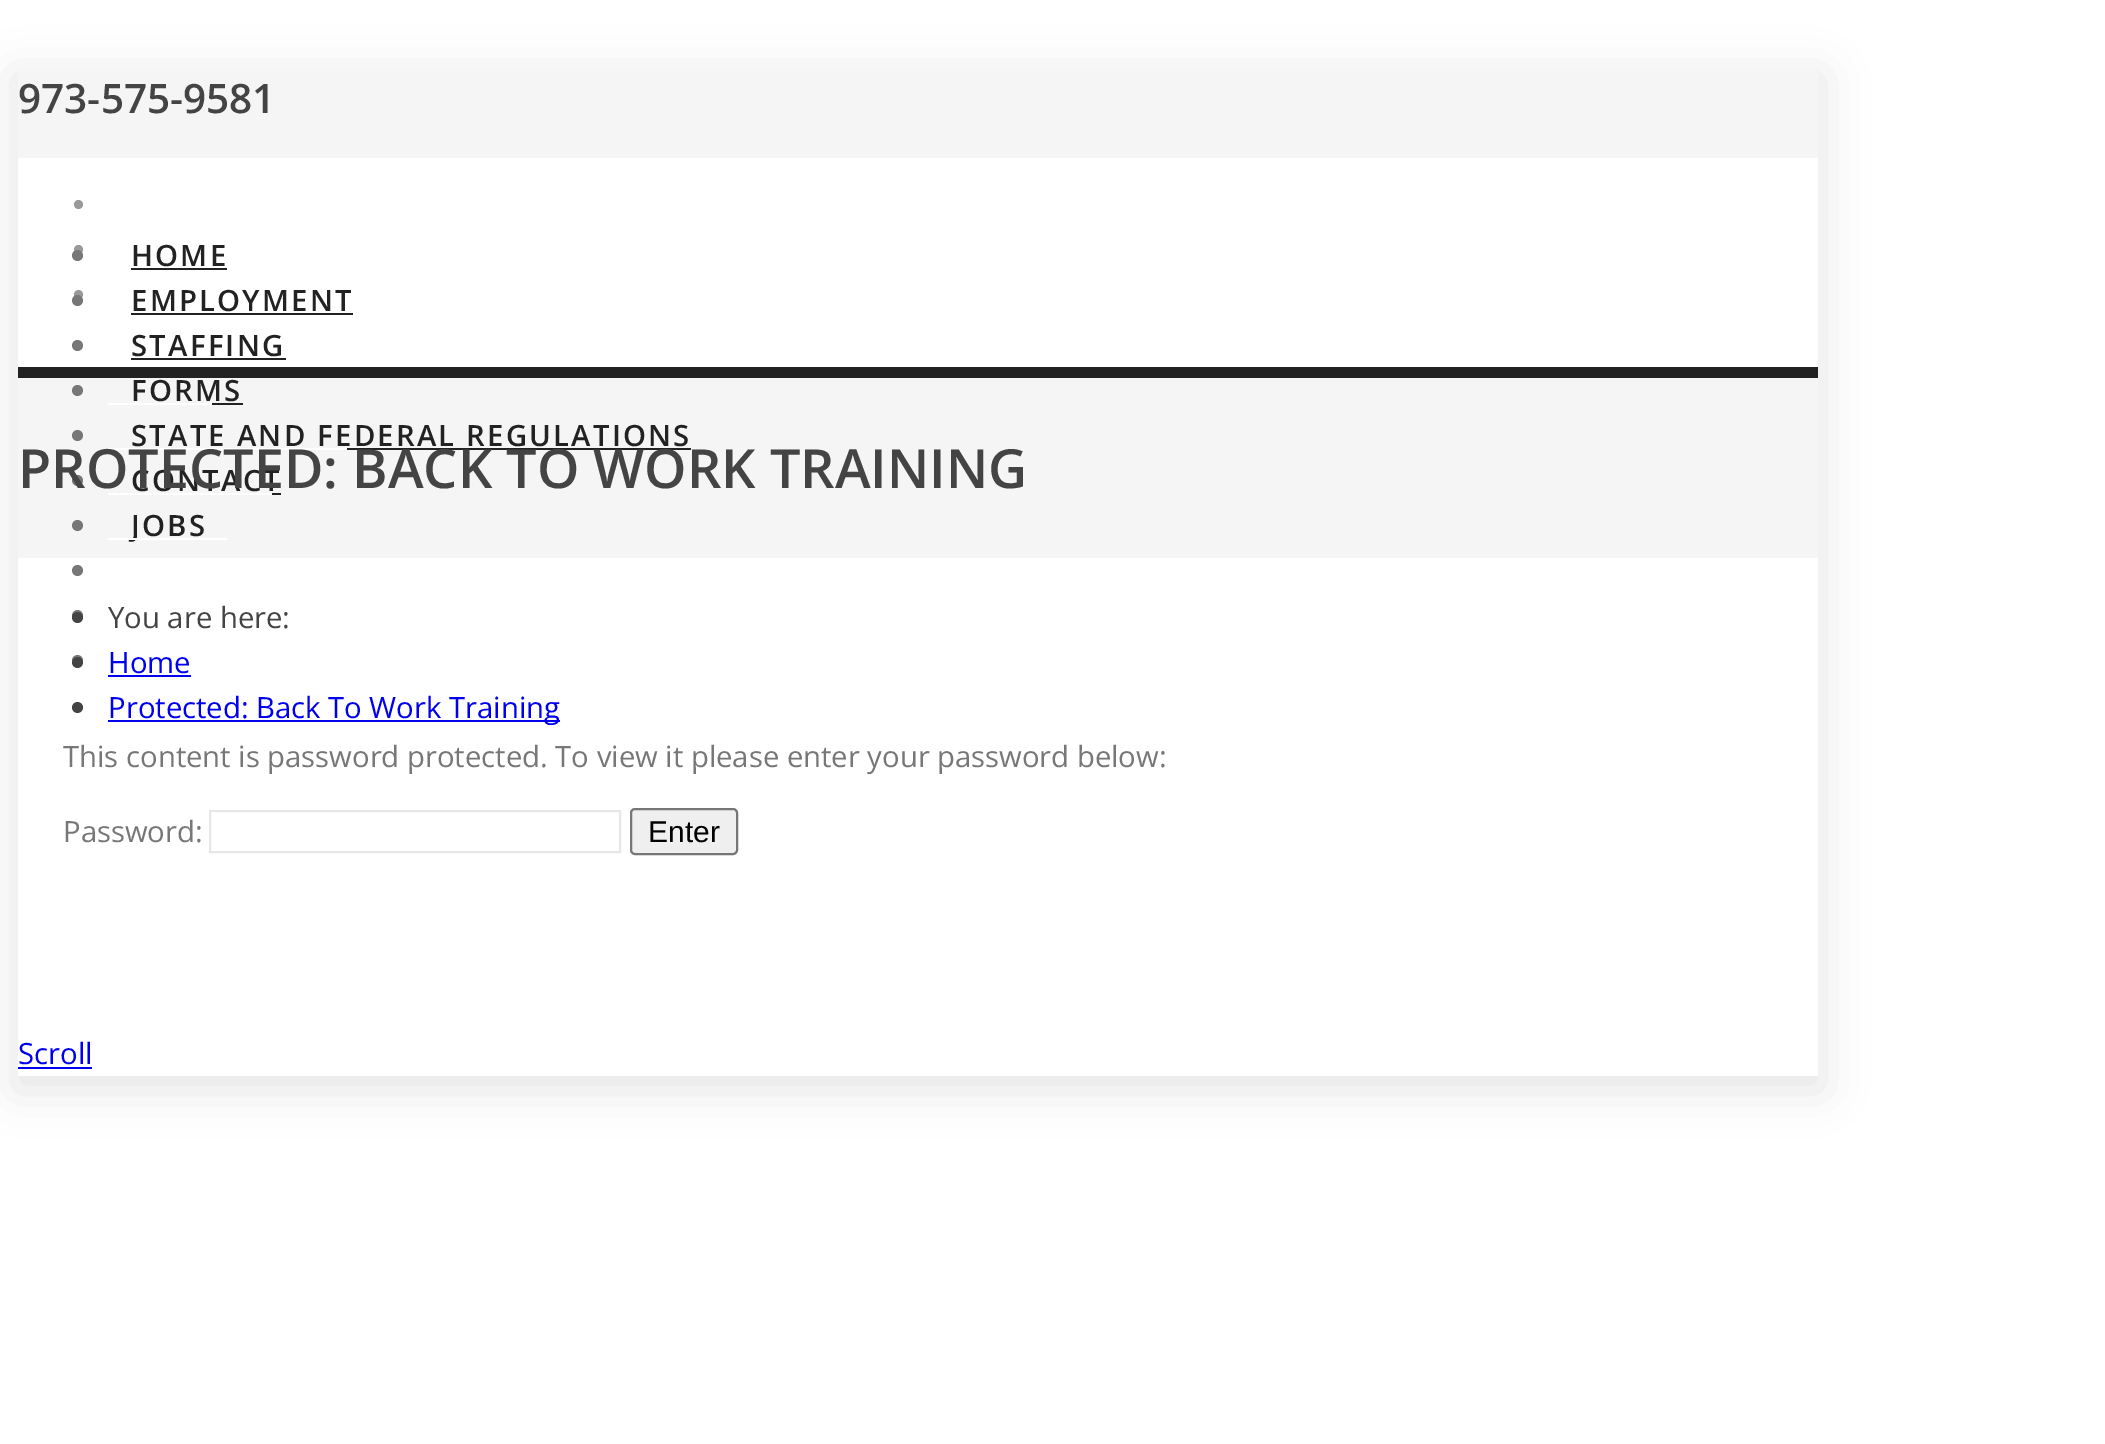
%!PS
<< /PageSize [2105 1444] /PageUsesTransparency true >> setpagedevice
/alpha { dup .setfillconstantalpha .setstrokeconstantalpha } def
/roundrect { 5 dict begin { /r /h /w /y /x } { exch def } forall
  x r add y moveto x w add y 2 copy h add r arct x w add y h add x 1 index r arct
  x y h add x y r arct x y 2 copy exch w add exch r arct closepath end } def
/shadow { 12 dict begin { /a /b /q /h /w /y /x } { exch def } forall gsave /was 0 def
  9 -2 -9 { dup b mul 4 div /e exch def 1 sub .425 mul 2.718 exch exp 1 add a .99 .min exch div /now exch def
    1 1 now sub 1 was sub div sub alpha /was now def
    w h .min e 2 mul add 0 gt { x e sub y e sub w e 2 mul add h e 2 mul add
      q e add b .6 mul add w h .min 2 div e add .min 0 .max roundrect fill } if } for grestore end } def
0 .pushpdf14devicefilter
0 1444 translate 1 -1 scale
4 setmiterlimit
1 setgray
0 0 2105 1444 rectfill
gsave
newpath 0 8 moveto 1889 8 lineto 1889 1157 lineto 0 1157 lineto closepath 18 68 moveto 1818 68 lineto 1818 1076 lineto 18 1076 lineto closepath eoclip newpath
0 setgray
14 74 1809 1017 0 21.5 0.1 shadow
grestore
0.961 setgray
18 68 1800 90 rectfill
/OpenSans-SemiBold [40.5 0 0 -40.5 0 0] selectfont
0.267 setgray
18 113 moveto (973-575-9581) show
0.6 setgray
newpath 78.5 204.5 4.5 0 360 arc closepath fill
newpath 78.5 249.5 4.5 0 360 arc closepath fill
newpath 78.5 294.5 4.5 0 360 arc closepath fill
0.467 setgray
newpath 77.5 255.5 5.5 0 360 arc closepath fill
/OpenSans-SemiBold [29.25 0 0 -29.25 0 0] selectfont
0.133 setgray
131 266 moveto 2.25 0 (HOME) ashow
131 268 96 2 rectfill
0.467 setgray
newpath 77.5 300.5 5.5 0 360 arc closepath fill
0.133 setgray
131 311 moveto 2.25 0 (EMPLOYMENT) ashow
131 313 222 2 rectfill
0.467 setgray
newpath 77.5 345.5 5.5 0 360 arc closepath fill
0.133 setgray
131 356 moveto 2.25 0 (STAFFING) ashow
131 358 155 2 rectfill
0.961 setgray
18 378 1800 180 rectfill
0.133 setgray
131 401 moveto 2.25 0 (FORMS) ashow
212 403 31 2 rectfill
131 446 moveto 2.25 0 (STATE AND FEDERAL REGULATIONS) ashow
347 448 344 2 rectfill
131 491 moveto 2.25 0 (CONTACT) ashow
272 493 9 2 rectfill
131 536 moveto 2.25 0 (JOBS) ashow
18 367 1800 11 rectfill
0.467 setgray
newpath 77.5 390.5 5.5 0 360 arc closepath fill
1 setgray
108 403 104 2 rectfill
0.467 setgray
newpath 77.5 435.5 5.5 0 360 arc closepath fill
1 setgray
108 448 239 2 rectfill
0.467 setgray
newpath 77.5 480.5 5.5 0 360 arc closepath fill
1 setgray
108 493 164 2 rectfill
0.467 setgray
newpath 77.5 525.5 5.5 0 360 arc closepath fill
1 setgray
108 538 119 2 rectfill
0.467 setgray
newpath 77.5 570.5 5.5 0 360 arc closepath fill
newpath 77.5 615.5 5.5 0 360 arc closepath fill
newpath 77.5 660.5 5.5 0 360 arc closepath fill
/OpenSans-SemiBold [54 0 0 -54 0 0] selectfont
0.267 setgray
18 488 moveto (PROTECTED: BACK TO WORK TRAINING) show
newpath 77.5 617.5 5.5 0 360 arc closepath fill
/OpenSans-Regular [29.25 0 0 -29.25 0 0] selectfont
108 628 moveto (You are here:) show
newpath 77.5 662.5 5.5 0 360 arc closepath fill
0 0 0.933 setrgbcolor
108 673 moveto (Home) show
108 675 83 2 rectfill
0.267 setgray
newpath 77.5 707.5 5.5 0 360 arc closepath fill
0 0 0.933 setrgbcolor
108 720 452 2 rectfill
108 718 moveto (Protected: Back To Work Training) show
0.467 setgray
63 767 moveto (This content is password protected. To view it please enter your password below:) show
63 842 moveto (Password:) show
0.906 setgray
2 setlinewidth
210 811 410 41 rectstroke
0.937 setgray
631 809 106 45 4 roundrect gsave fill grestore
0.463 setgray
stroke
/LiberationSans-Regular [30 0 0 -30 0 0] selectfont
0 setgray
648 842 moveto (Enter) show
/OpenSans-Regular [29.25 0 0 -29.25 0 0] selectfont
0 0 0.933 setrgbcolor
18 1064 moveto (Scroll) show
18 1067 74 2 rectfill
.poppdf14devicefilter showpage
